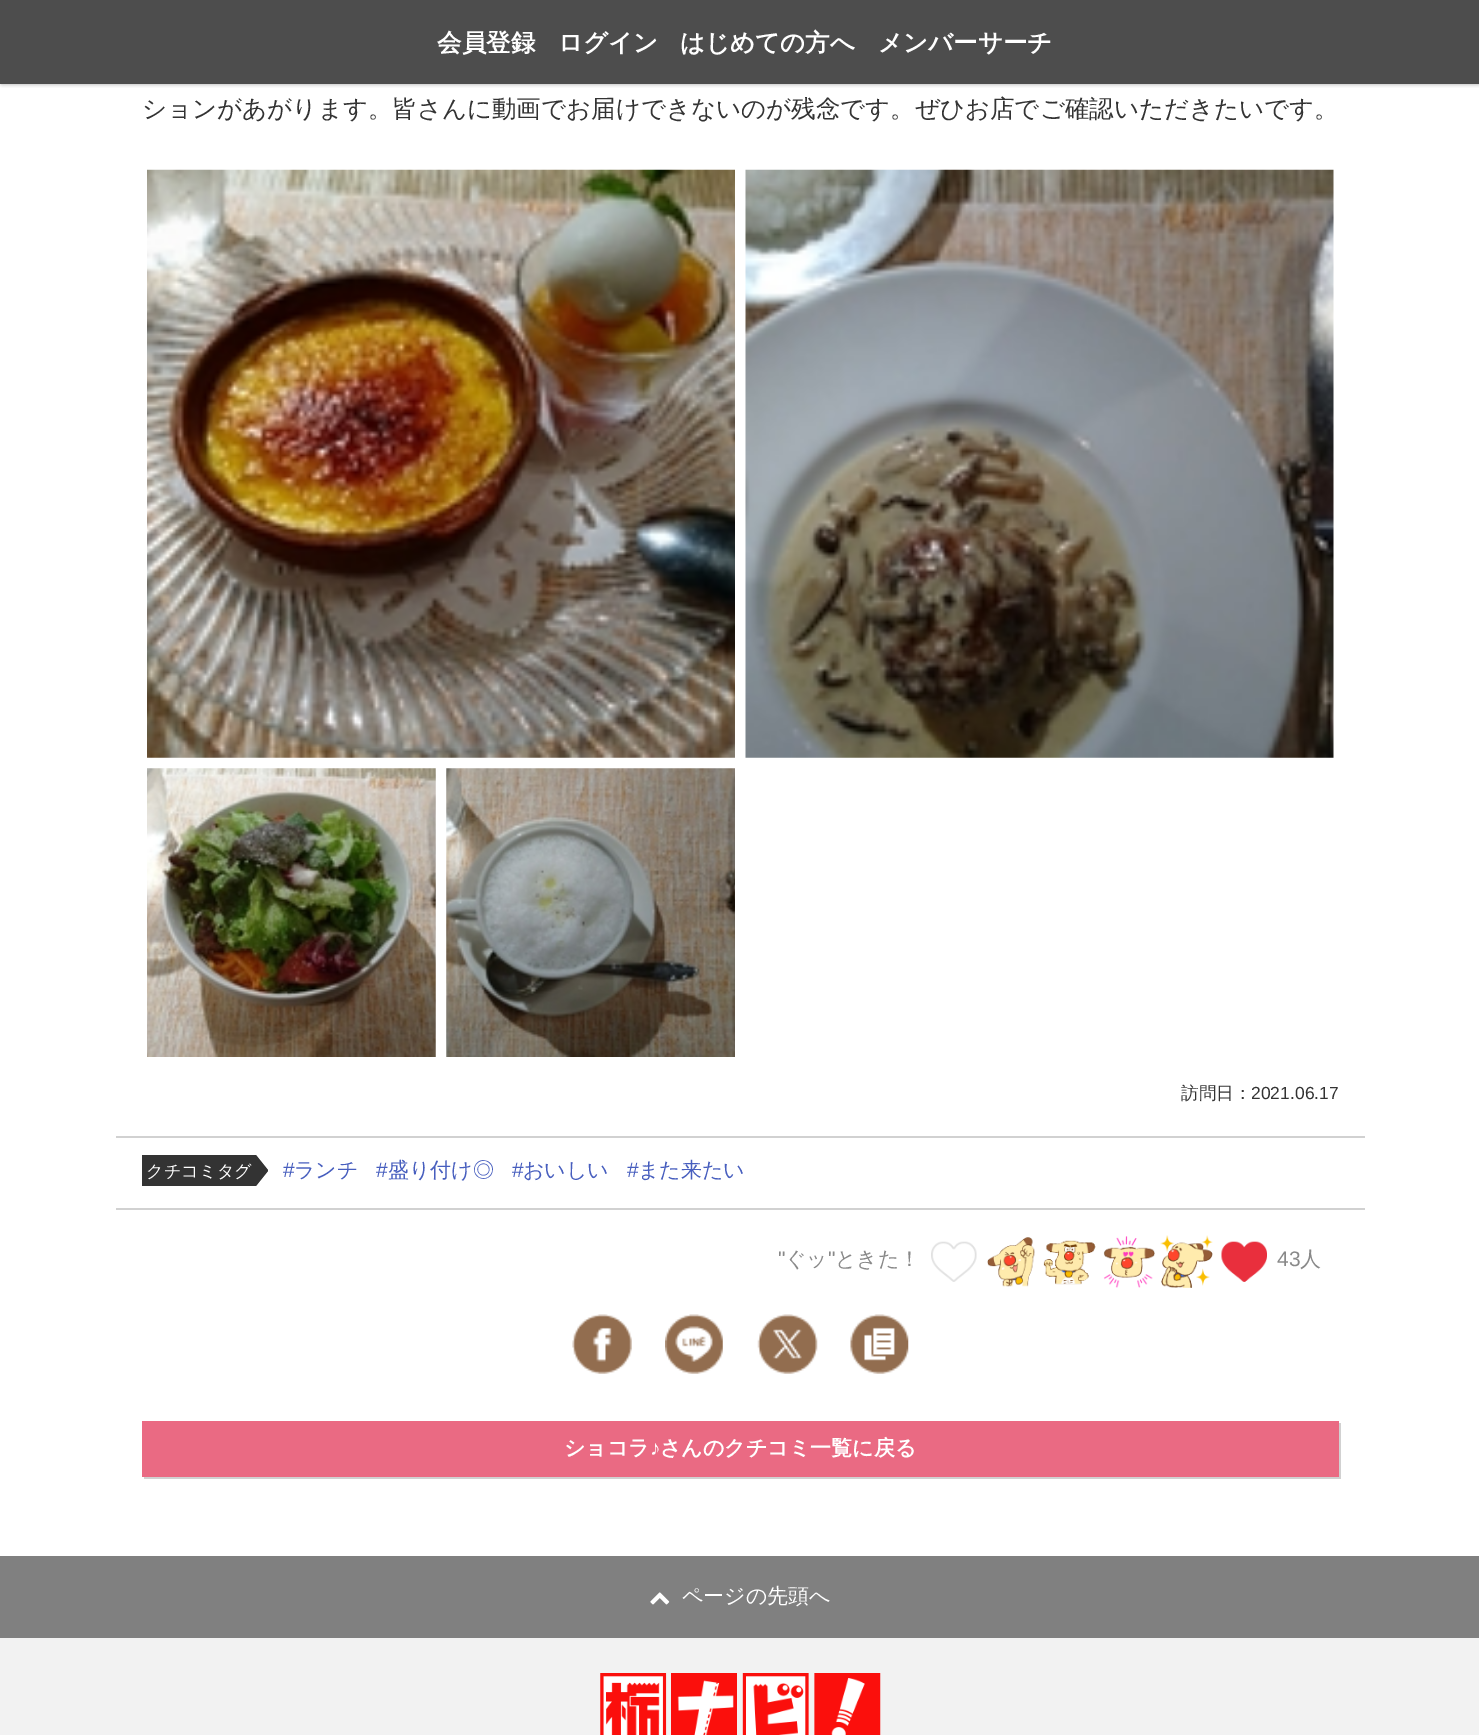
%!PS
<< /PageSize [1479 1735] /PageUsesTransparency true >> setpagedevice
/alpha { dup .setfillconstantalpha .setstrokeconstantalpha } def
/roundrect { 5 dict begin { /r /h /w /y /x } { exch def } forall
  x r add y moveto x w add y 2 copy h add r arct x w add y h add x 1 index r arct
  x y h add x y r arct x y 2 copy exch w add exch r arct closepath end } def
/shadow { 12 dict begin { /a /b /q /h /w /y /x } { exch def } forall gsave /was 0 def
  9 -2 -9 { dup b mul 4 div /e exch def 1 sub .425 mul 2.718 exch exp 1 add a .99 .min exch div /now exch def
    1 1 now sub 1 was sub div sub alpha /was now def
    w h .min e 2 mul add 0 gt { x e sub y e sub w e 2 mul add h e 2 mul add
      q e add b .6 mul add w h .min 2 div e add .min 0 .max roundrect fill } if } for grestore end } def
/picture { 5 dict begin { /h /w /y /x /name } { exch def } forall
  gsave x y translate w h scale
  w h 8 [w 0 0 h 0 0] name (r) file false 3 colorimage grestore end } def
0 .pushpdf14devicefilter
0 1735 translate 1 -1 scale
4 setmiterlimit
1 setgray
0 0 1479 1735 rectfill
0 setgray
2 2 1477 80 0 2.5 1 shadow
0.302 setgray
0 0 1479 84 rectfill
/WenQuanYiZenHei-Bold [24.5 0 0 -24.5 0 0] selectfont
1 setgray
437 51 moveto (会員登録) show
558 51 moveto (ログイン) show
680 51 moveto (はじめての方へ) show
878 51 moveto (メンバーサーチ) show
/WenQuanYiZenHei-Medium [24.5 0 0 -24.5 0 0] selectfont
0.2 setgray
142 117 moveto (ションがあがります。皆さんに動画でお届けできないのが残念です。ぜひお店でご確認いただきたいです。) show
(img1.rgb) 147 169 588 589 picture
(img2.rgb) 745 169 589 589 picture
(img3.rgb) 147 768 289 289 picture
(img4.rgb) 446 768 289 289 picture
/WenQuanYiZenHei-Medium [17.5 0 0 -17.5 0 0] selectfont
1181 1099 moveto (訪問日：) show
/LiberationSans-Regular [17.5 0 0 -17.5 0 0] selectfont
1251 1099 moveto (2021.06.17) show
0.82 setgray
116 1136 1249 2 rectfill
116 1208 1249 2 rectfill
0.2 setgray
newpath 142 1155 moveto 256 1155 lineto 268 1170 lineto 268 1171 lineto 256 1186 lineto 142 1186 lineto closepath fill
/WenQuanYiZenHei-Medium [17.25 0 0 -17.25 0 0] selectfont
1 setgray
146 1177 moveto (クチコミタグ) show
/LiberationSans-Regular [21 0 0 -21 0 0] selectfont
0.278 0.369 0.745 setrgbcolor
283 1177 moveto (#) show
/WenQuanYiZenHei-Medium [21 0 0 -21 0 0] selectfont
294 1177 moveto (ランチ) show
/LiberationSans-Regular [21 0 0 -21 0 0] selectfont
376 1177 moveto (#) show
/WenQuanYiZenHei-Medium [21 0 0 -21 0 0] selectfont
388 1177 moveto (盛り付け◎) show
/LiberationSans-Regular [21 0 0 -21 0 0] selectfont
512 1177 moveto (#) show
/WenQuanYiZenHei-Medium [21 0 0 -21 0 0] selectfont
523 1177 moveto (おいしい) show
/LiberationSans-Regular [21 0 0 -21 0 0] selectfont
627 1177 moveto (#) show
/WenQuanYiZenHei-Medium [21 0 0 -21 0 0] selectfont
638 1177 moveto (また来たい) show
/LiberationSans-Regular [21 0 0 -21 0 0] selectfont
0.537 setgray
778 1266 moveto (") show
/WenQuanYiZenHei-Medium [21 0 0 -21 0 0] selectfont
785 1266 moveto (ぐッ) show
/LiberationSans-Regular [21 0 0 -21 0 0] selectfont
828 1266 moveto (") show
/WenQuanYiZenHei-Medium [21 0 0 -21 0 0] selectfont
835 1266 moveto (ときた！) show
(img5.rgb) 931 1241 46 41 picture
(img6.rgb) 987 1237 48 50 picture
(img7.rgb) 1043 1240 53 45 picture
(img8.rgb) 1103 1236 52 52 picture
(img9.rgb) 1160 1235 53 53 picture
(img10.rgb) 1221 1241 46 41 picture
/LiberationSans-Regular [21 0 0 -21 0 0] selectfont
1277 1266 moveto (43) show
/WenQuanYiZenHei-Medium [21 0 0 -21 0 0] selectfont
1300 1266 moveto (人) show
(img11.rgb) 572 1314 60 60 picture
(img12.rgb) 665 1314 58 60 picture
(img13.rgb) 757 1314 61 60 picture
(img14.rgb) 850 1314 59 60 picture
0.82 setgray
newpath 144 1477 moveto 144 1479 lineto 1341 1479 lineto 1341 1423 lineto 1339 1423 lineto 1339 1477 lineto closepath fill
0.918 0.416 0.514 setrgbcolor
142 1421 1197 56 rectfill
/WenQuanYiZenHei-Bold [21 0 0 -21 0 0] selectfont
1 setgray
564 1455 moveto (ショコラ) show
/LiberationSans-Bold [21 0 0 -21 0 0] selectfont
650 1455 moveto (♪) show
/WenQuanYiZenHei-Bold [21 0 0 -21 0 0] selectfont
660 1455 moveto (さんのクチコミ一覧に戻る) show
0.502 setgray
0 1556 1479 82 rectfill
(img15.rgb) 650 1592 20 13 picture
/WenQuanYiZenHei-Medium [21 0 0 -21 0 0] selectfont
1 setgray
682 1603 moveto (ページの先頭へ) show
0.949 setgray
0 1638 1479 97 rectfill
(img16.rgb) 600 1673 281 62 picture
.poppdf14devicefilter showpage
